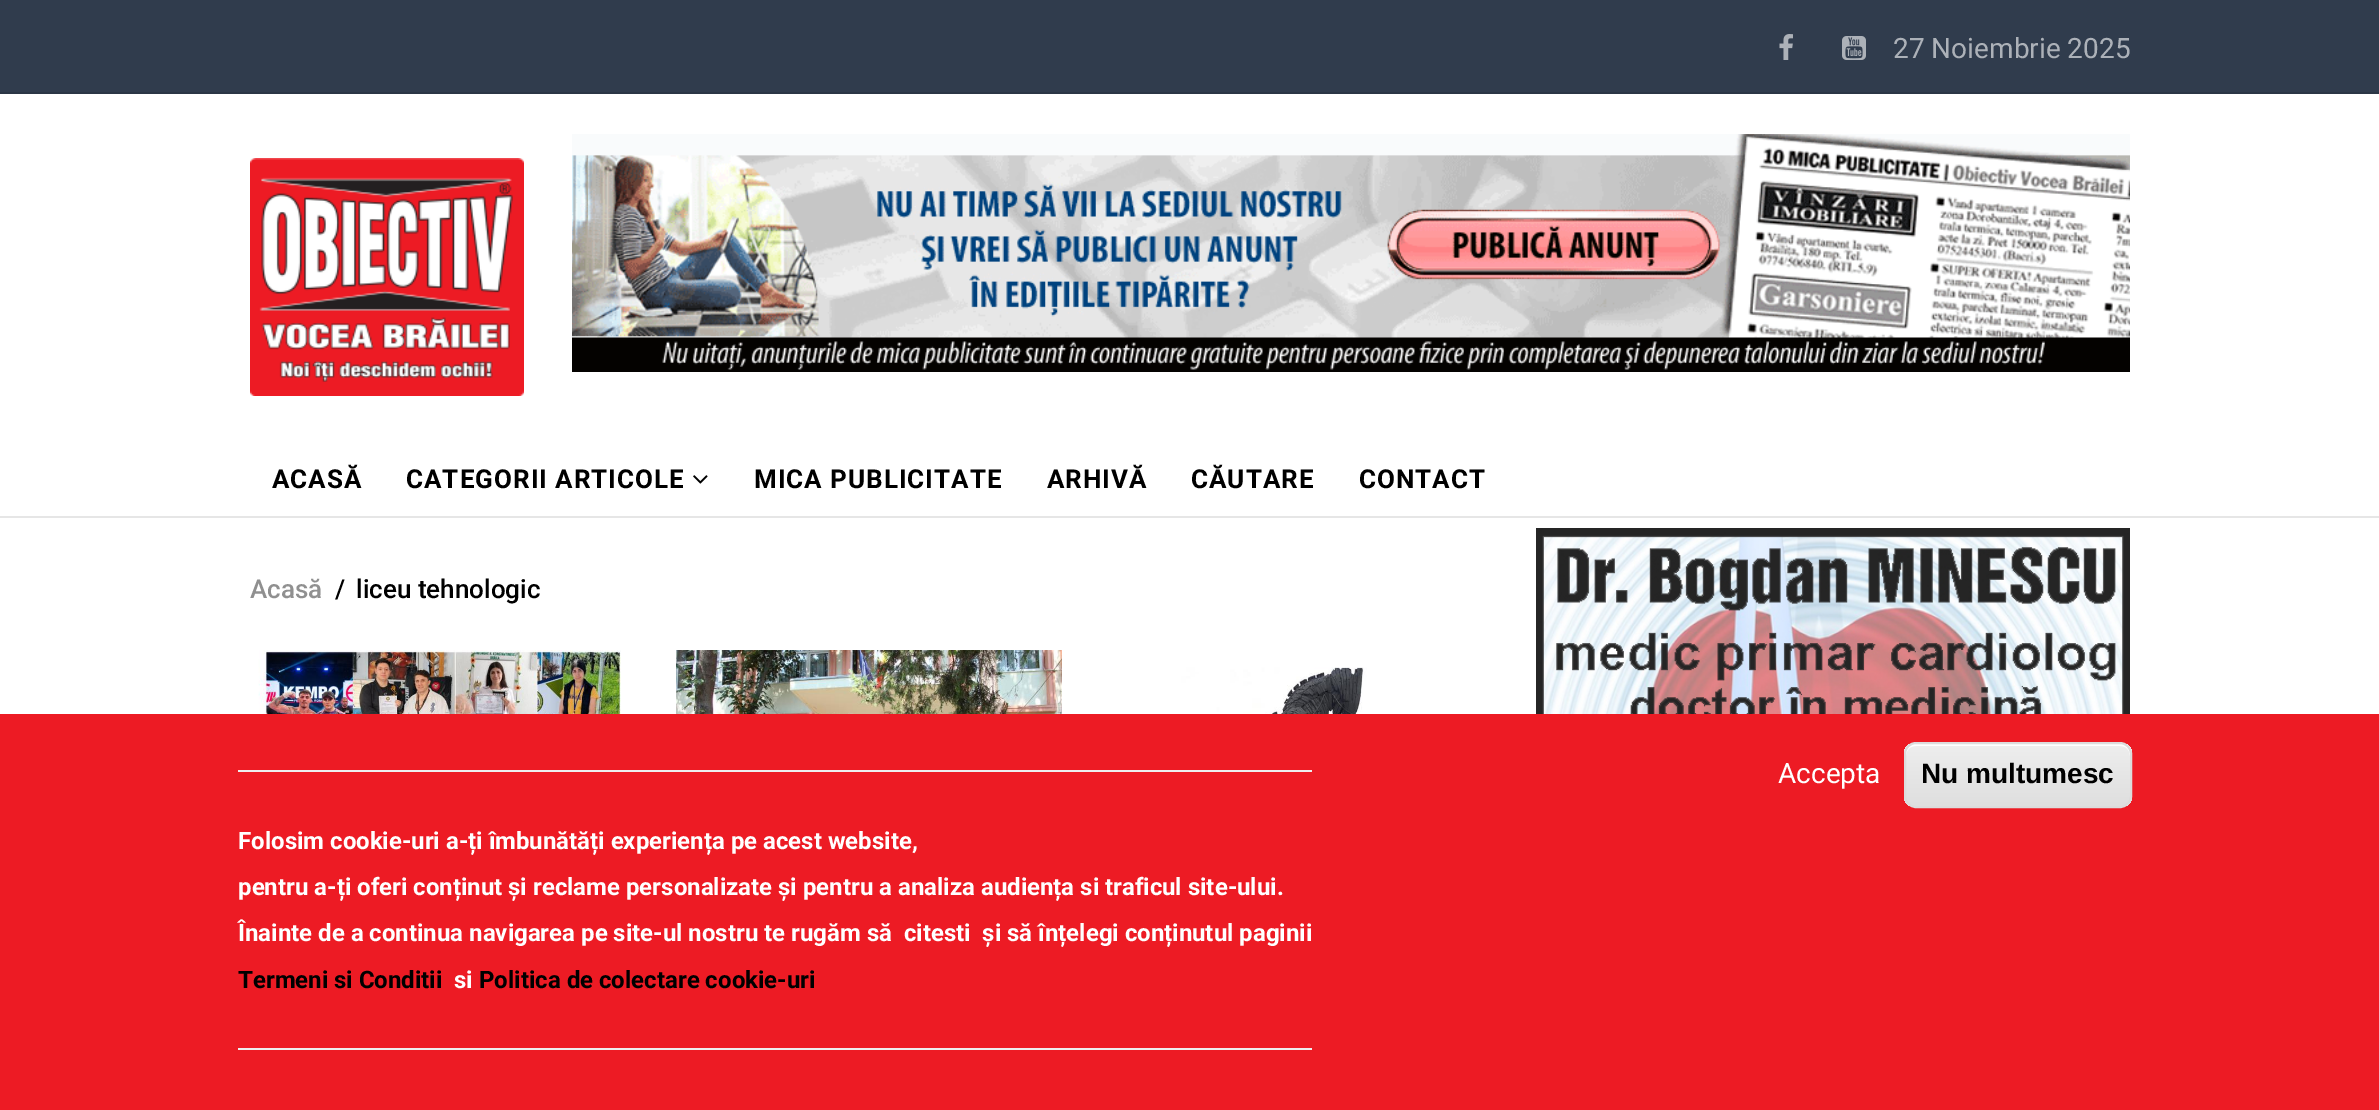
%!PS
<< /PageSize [2379 1110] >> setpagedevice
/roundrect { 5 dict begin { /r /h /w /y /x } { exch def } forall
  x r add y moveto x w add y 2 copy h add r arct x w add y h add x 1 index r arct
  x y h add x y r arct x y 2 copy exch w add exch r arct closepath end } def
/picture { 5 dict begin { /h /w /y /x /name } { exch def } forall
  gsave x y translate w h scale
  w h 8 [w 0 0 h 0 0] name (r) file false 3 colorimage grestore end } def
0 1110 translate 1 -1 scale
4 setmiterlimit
1 setgray
0 0 2379 1110 rectfill
0.188 0.235 0.302 setrgbcolor
0 0 2379 92 rectfill
0.169 0.212 0.271 setrgbcolor
0 92 2379 2 rectfill
(img1.rgb) 1779 34 14 26 picture
(img2.rgb) 1842 36 24 24 picture
/Roboto-Regular [28 0 0 -28 0 0] selectfont
0.675 0.694 0.722 setrgbcolor
1893 58 moveto (27 Noiembrie 2025) show
(img3.rgb) 250 158 274 238 picture
(img4.rgb) 572 134 1558 238 picture
0.902 setgray
0 516 2379 2 rectfill
/Roboto-Bold [26 0 0 -26 0 0] selectfont
0 setgray
272 488 moveto 1 0 (ACASĂ) ashow
406 488 moveto 1 0 (CATEGORII ARTICOLE) ashow
(img5.rgb) 693 475 15 9 picture
754 488 moveto 1 0 (MICA PUBLICITATE) ashow
1047 488 moveto 1 0 (ARHIVĂ) ashow
1191 488 moveto 1 0 (CĂUTARE) ashow
1359 488 moveto 1 0 (CONTACT) ashow
/Roboto-Medium [26 0 0 -26 0 0] selectfont
0.565 setgray
250 598 moveto (Acasă) show
0 setgray
335 598 moveto (/) show
356 598 moveto (liceu tehnologic) show
(img6.rgb) 258 650 363 64 picture
(img7.rgb) 676 650 386 64 picture
(img8.rgb) 1137 667 292 47 picture
(img9.rgb) 1536 528 594 186 picture
0.929 0.106 0.141 setrgbcolor
0 714 2379 396 rectfill
/Roboto-Regular [28 0 0 -28 0 0] selectfont
1 setgray
1778 783 moveto (Accepta) show
gsave
1904 742 228 66 12 roundrect clip newpath
gsave newpath 1904 744 moveto 2132 744 lineto 2132 806 lineto 1904 806 lineto closepath clip newpath
<< /ShadingType 2 /ColorSpace /DeviceRGB /Coords [2018 744 2018 806] /Extend [true true] /Function << /FunctionType 3 /Domain [0 1] /Functions [<< /FunctionType 2 /Domain [0 1] /C0 [0.929 0.929 0.929] /C1 [0.929 0.929 0.929] /N 1 >> << /FunctionType 2 /Domain [0 1] /C0 [0.929 0.929 0.929] /C1 [0.875 0.875 0.875] /N 1 >>] /Bounds [0.05] /Encode [0 1 0 1] >> >> shfill grestore
grestore
newpath 1916 746 moveto 2120 746 lineto 2126 746 2130 750 2130 756 curveto 2130 754 lineto 2130 748 2126 744 2120 744 curveto 1916 744 lineto 1910 744 1906 748 1906 754 curveto 1906 756 lineto 1906 750 1910 746 1916 746 curveto closepath fill
0.863 setgray
2 setlinewidth
1905 743 226 64 11 roundrect stroke
/LiberationSans-Bold [28 0 0 -28 0 0] selectfont
0 setgray
1921 783 moveto (Nu multumesc) show
0.933 setgray
238 770 1074 2 rectfill
/Roboto-Bold [24 0 0 -24 0 0] selectfont
1 setgray
238 849 moveto (Folosim cookie-uri a-ți îmbunătăți experiența pe acest website,) show
238 895 moveto (pentru a-ți oferi conținut și reclame personalizate și pentru a analiza audiența si traficul site-ului.) show
238 941 moveto (Înainte de a continua navigarea pe site-ul nostru te rugăm să  citesti  și să înțelegi conținutul paginii) show
0 setgray
238 988 moveto (Termeni si Conditii) show
1 setgray
454 988 moveto (si) show
0 setgray
479 988 moveto (Politica de colectare cookie-uri) show
0.933 setgray
238 1048 1074 2 rectfill
showpage
